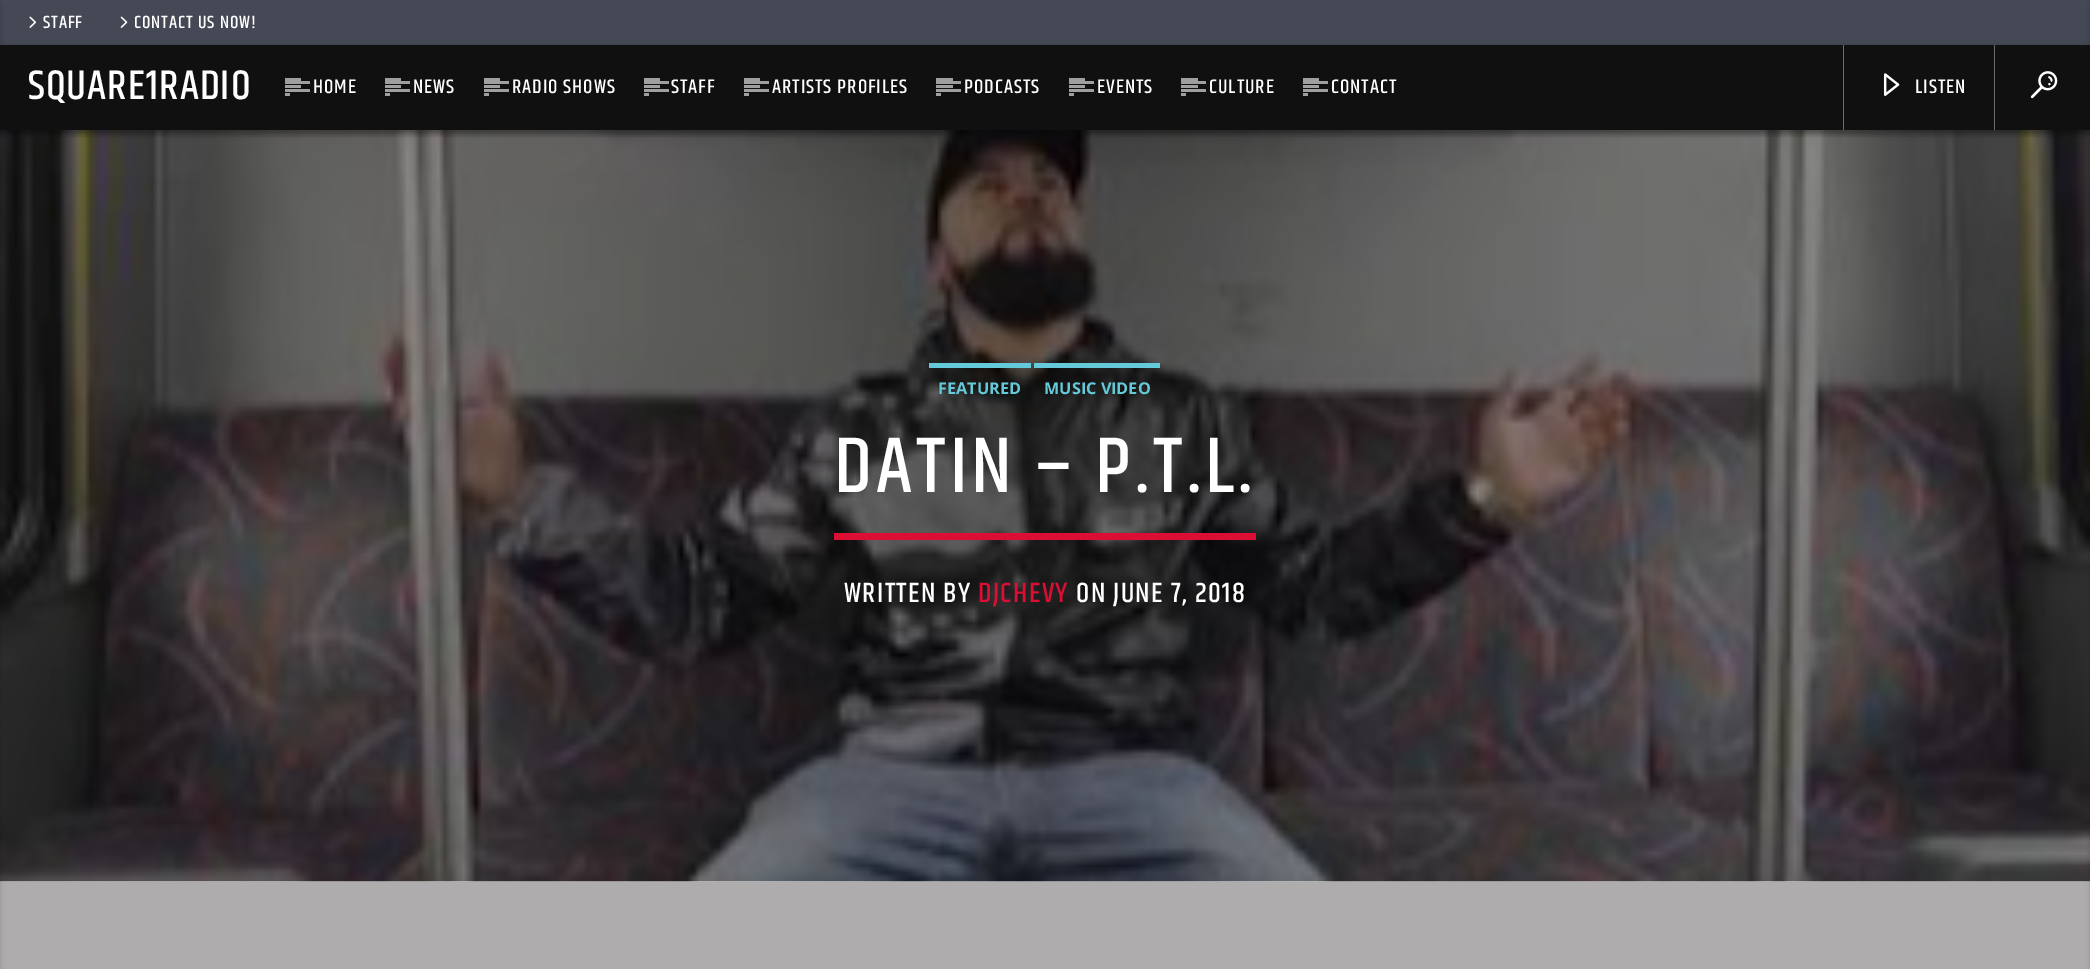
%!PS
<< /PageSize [2090 969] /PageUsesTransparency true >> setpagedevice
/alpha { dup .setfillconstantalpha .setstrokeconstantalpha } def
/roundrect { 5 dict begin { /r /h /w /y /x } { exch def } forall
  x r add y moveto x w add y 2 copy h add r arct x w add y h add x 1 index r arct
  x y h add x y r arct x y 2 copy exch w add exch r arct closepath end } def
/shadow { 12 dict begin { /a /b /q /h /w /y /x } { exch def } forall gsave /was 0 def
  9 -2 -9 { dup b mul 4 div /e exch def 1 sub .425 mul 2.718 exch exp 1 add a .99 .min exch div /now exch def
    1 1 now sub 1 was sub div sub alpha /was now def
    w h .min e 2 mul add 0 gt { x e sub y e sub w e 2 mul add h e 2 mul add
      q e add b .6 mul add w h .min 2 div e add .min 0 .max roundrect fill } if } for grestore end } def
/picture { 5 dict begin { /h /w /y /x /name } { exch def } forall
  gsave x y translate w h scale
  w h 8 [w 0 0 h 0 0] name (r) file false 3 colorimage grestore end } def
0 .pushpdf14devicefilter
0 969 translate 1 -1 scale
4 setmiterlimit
0.682 0.675 0.675 setrgbcolor
0 0 2090 969 rectfill
0.271 0.286 0.333 setrgbcolor
0 0 2090 45 rectfill
0 setgray
0 130 2090 751 rectfill
(img5.rgb) 0 130 2090 752 picture
0 48 2090 85 0 6 0.12 shadow
0 48 2090 85 0 3 0.16 shadow
0.063 setgray
0 45 2090 85 rectfill
0 setgray
-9 3 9 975 0 3 0.16 shadow
(img1.rgb) 29 16 7 12 picture
/Khand-Medium [18 0 0 -18 0 0] selectfont
1 setgray
43 28 moveto 0.9 0 (STAFF) ashow
(img2.rgb) 120 16 8 12 picture
134 28 moveto 0.9 0 (CONTACT US NOW!) ashow
/Khand-Medium [42 0 0 -42 0 0] selectfont
28 99 moveto 1 0 (SQUARE1RADIO) ashow
0.624 setgray
285 78 16 3 rectfill
285 85 16 3 rectfill
/Khand-Medium [20 0 0 -20 0 0] selectfont
1 setgray
313 93 moveto 1 0 (HOME) ashow
0.624 setgray
285 81 25 3 rectfill
285 89 25 3 rectfill
285 93 5 3 rectfill
385 78 16 3 rectfill
385 85 16 3 rectfill
1 setgray
413 93 moveto 1 0 (NEWS) ashow
0.624 setgray
385 81 25 3 rectfill
385 89 25 3 rectfill
385 93 5 3 rectfill
484 78 16 3 rectfill
484 85 16 3 rectfill
1 setgray
512 93 moveto 1 0 (RADIO SHOWS) ashow
0.624 setgray
484 81 25 3 rectfill
484 89 25 3 rectfill
484 93 5 3 rectfill
644 78 16 3 rectfill
644 85 16 3 rectfill
1 setgray
671 93 moveto 1 0 (STAFF) ashow
0.624 setgray
644 81 25 3 rectfill
644 89 25 3 rectfill
644 93 5 3 rectfill
744 78 16 3 rectfill
744 85 16 3 rectfill
1 setgray
772 93 moveto 1 0 (ARTISTS PROFILES) ashow
0.624 setgray
744 81 25 3 rectfill
744 89 25 3 rectfill
744 93 5 3 rectfill
936 78 17 3 rectfill
936 85 17 3 rectfill
1 setgray
964 93 moveto 1 0 (PODCASTS) ashow
0.624 setgray
936 81 25 3 rectfill
936 89 25 3 rectfill
936 93 5 3 rectfill
1069 78 16 3 rectfill
1069 85 16 3 rectfill
1 setgray
1097 93 moveto 1 0 (EVENTS) ashow
0.624 setgray
1069 81 25 3 rectfill
1069 89 25 3 rectfill
1069 93 5 3 rectfill
1181 78 17 3 rectfill
1181 85 17 3 rectfill
1 setgray
1209 93 moveto 1 0 (CULTURE) ashow
0.624 setgray
1181 81 25 3 rectfill
1181 89 25 3 rectfill
1181 93 5 3 rectfill
1303 78 16 3 rectfill
1303 85 16 3 rectfill
1 setgray
1331 93 moveto 1 0 (CONTACT) ashow
0.624 setgray
1303 81 25 3 rectfill
1303 89 25 3 rectfill
1303 93 5 3 rectfill
0.42 setgray
1843 45 1 85 rectfill
(img3.rgb) 1883 73 17 23 picture
1 setgray
1915 93 moveto 1 0 (LISTEN) ashow
0.42 setgray
1994 45 1 85 rectfill
(img4.rgb) 2030 71 28 28 picture
0 setgray
2090 3 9 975 0 3 0.16 shadow
0.392 0.788 0.851 setrgbcolor
929 363 102 5 rectfill
/OpenSans-Bold [16.25 0 0 -16.25 0 0] selectfont
938 394 moveto (FEATURED) show
1034 363 126 5 rectfill
1044 394 moveto (MUSIC VIDEO) show
0.867 0.055 0.204 setrgbcolor
834 533 422 7 rectfill
/Khand-Medium [80 0 0 -80 0 0] selectfont
1 setgray
834 492 moveto 4 0 (DATIN – P.T.L.) ashow
/Khand-Medium [28.25 0 0 -28.25 0 0] selectfont
844 602 moveto 1.4 0 (WRITTEN BY) ashow
0.867 0.055 0.204 setrgbcolor
978 602 moveto 1.4 0 (DJCHEVY) ashow
1 setgray
1076 602 moveto 1.4 0 (ON JUNE 7, 2018) ashow
.poppdf14devicefilter showpage
